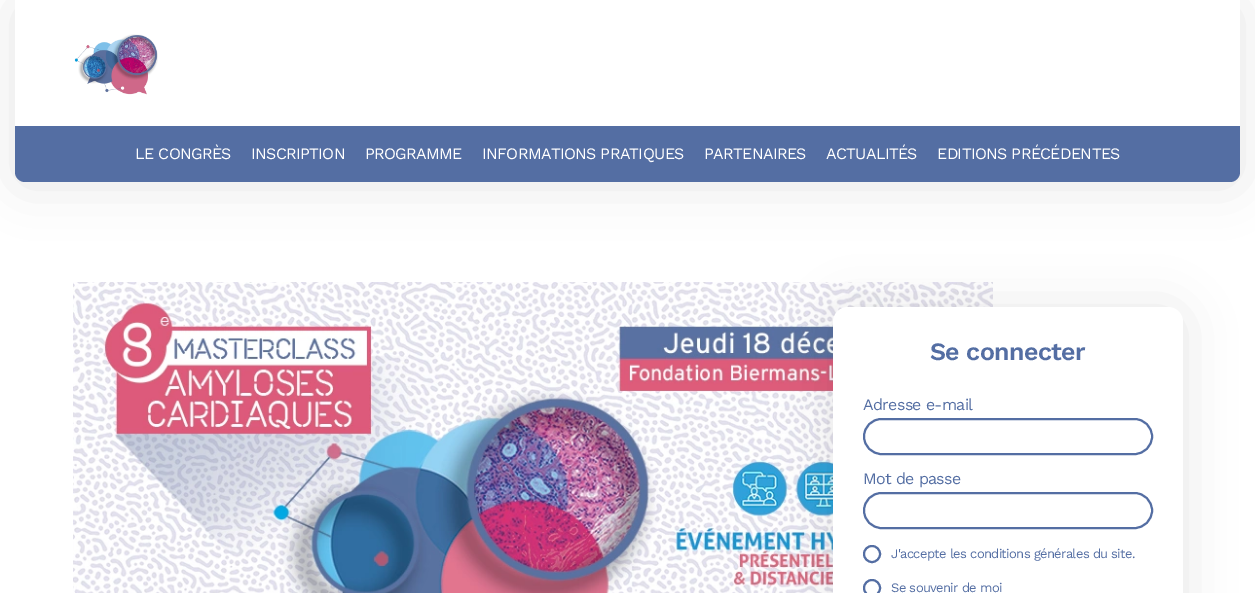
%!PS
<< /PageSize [1255 593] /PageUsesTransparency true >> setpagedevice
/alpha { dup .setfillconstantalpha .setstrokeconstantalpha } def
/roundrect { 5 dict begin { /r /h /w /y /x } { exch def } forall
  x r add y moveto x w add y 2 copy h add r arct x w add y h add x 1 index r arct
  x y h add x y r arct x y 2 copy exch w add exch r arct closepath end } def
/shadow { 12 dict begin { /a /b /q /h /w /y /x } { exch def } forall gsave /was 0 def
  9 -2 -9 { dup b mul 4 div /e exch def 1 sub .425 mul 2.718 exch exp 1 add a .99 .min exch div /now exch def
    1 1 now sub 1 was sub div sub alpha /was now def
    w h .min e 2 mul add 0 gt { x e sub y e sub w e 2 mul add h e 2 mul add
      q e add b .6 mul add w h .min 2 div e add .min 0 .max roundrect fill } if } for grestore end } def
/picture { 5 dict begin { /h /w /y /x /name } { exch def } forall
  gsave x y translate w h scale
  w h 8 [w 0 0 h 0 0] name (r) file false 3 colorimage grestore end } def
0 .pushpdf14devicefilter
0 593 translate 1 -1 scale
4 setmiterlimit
1 setgray
0 0 1255 593 rectfill
gsave
newpath 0 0 moveto 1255 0 lineto 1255 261 lineto 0 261 lineto closepath 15 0 moveto 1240 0 lineto 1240 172 lineto 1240 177.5 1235.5 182 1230 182 curveto 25 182 lineto 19.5 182 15 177.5 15 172 curveto closepath eoclip newpath
0 setgray
15 3 1225 182 10 25 0.1 shadow
grestore
(img1.rgb) 74 34 84 61 picture
0.329 0.431 0.639 setrgbcolor
newpath 15 126 moveto 1240 126 lineto 1240 172 lineto 1240 177.5 1235.5 182 1230 182 curveto 25 182 lineto 19.5 182 15 177.5 15 172 curveto closepath fill
/WorkSans-Regular [16 0 0 -16 0 0] selectfont
1 setgray
135 159 moveto -0.65 0 (LE CONGRÈS) ashow
251 159 moveto -0.65 0 (INSCRIPTION) ashow
365 159 moveto -0.65 0 (PROGRAMME) ashow
482 159 moveto -0.65 0 (INFORMATIONS PRATIQUES) ashow
704 159 moveto -0.65 0 (PARTENAIRES) ashow
826 159 moveto -0.65 0 (ACTUALITÉS) ashow
937 159 moveto -0.65 0 (EDITIONS PRÉCÉDENTES) ashow
(img2.rgb) 73 282 920 311 picture
0 setgray
833 310 350 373 15 25 0.1 shadow
1 setgray
833 307 350 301 15 roundrect fill
/WorkSans-SemiBold [25 0 0 -25 0 0] selectfont
0.329 0.431 0.639 setrgbcolor
930 360 moveto -0.65 0 (Se connecter) ashow
/WorkSans-Regular [16 0 0 -16 0 0] selectfont
863 410 moveto -0.65 0 (Adresse e-mail) ashow
2 setlinewidth
864 419 288 35 17.5 roundrect stroke
863 484 moveto -0.65 0 (Mot de passe) ashow
864 493 288 35 17.5 roundrect stroke
newpath 872 554 8 0 360 arc closepath stroke
/WorkSans-Regular [13 0 0 -13 0 0] selectfont
891 558 moveto -0.65 0 (J'accepte les conditions générales du site.) ashow
newpath 872 588 8 0 360 arc closepath stroke
891 592 moveto -0.65 0 (Se souvenir de moi) ashow
.poppdf14devicefilter showpage
